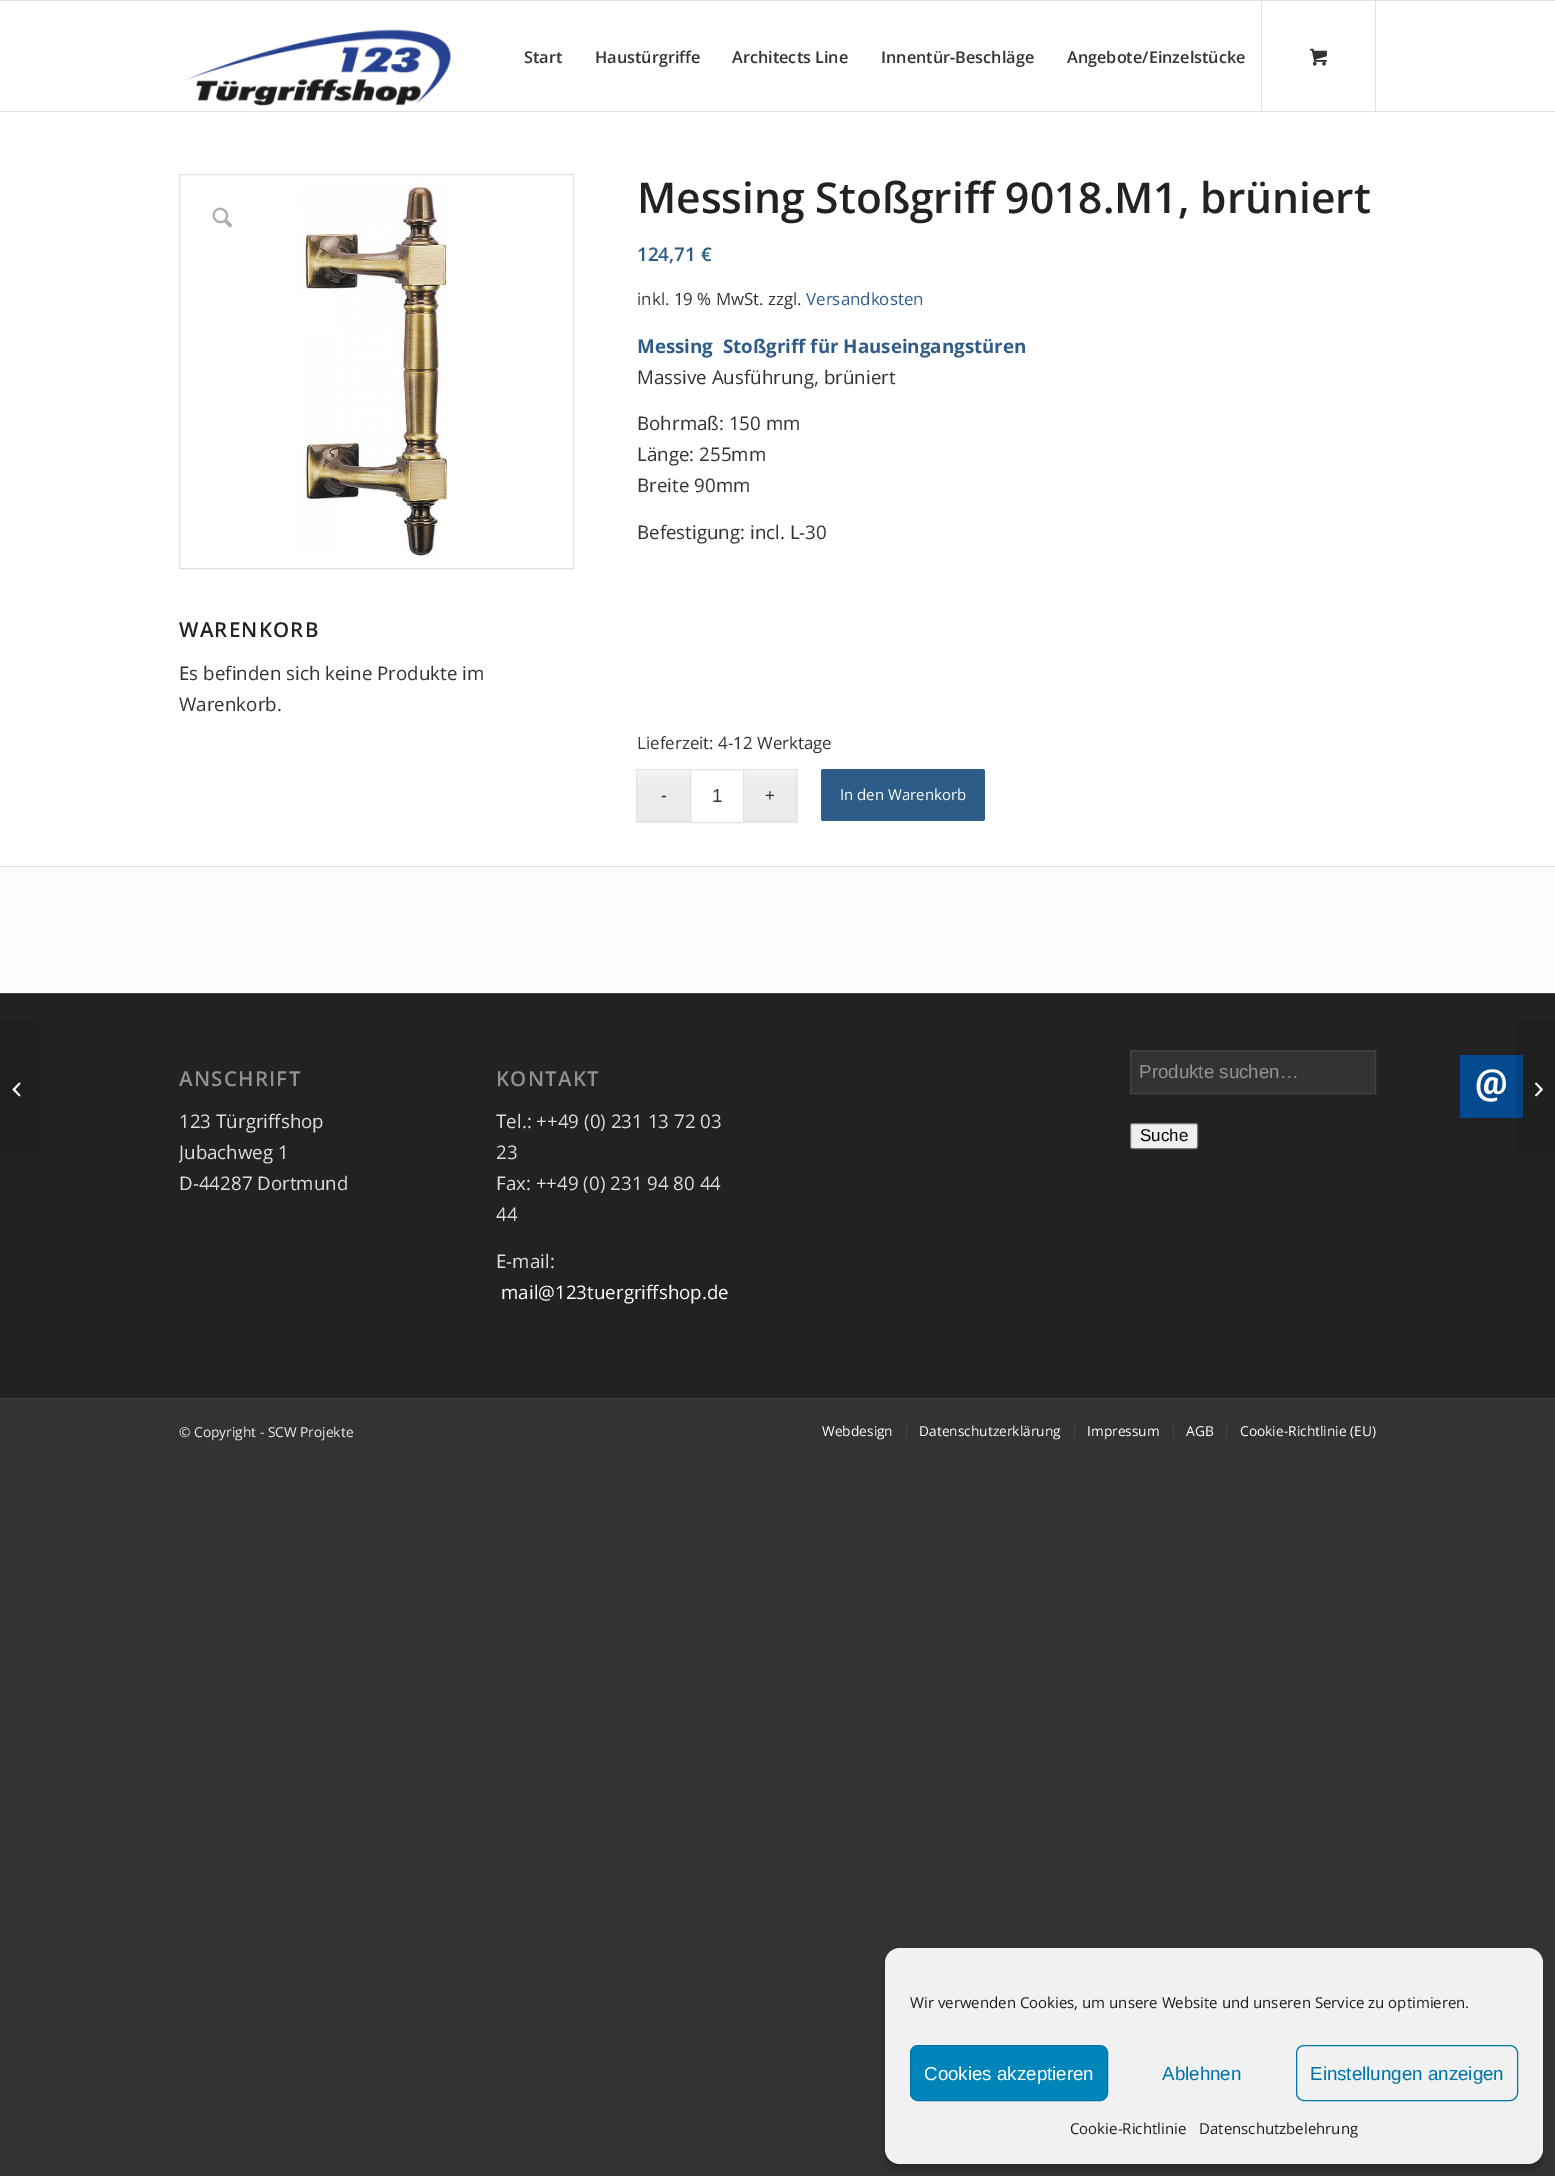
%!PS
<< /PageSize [1555 2176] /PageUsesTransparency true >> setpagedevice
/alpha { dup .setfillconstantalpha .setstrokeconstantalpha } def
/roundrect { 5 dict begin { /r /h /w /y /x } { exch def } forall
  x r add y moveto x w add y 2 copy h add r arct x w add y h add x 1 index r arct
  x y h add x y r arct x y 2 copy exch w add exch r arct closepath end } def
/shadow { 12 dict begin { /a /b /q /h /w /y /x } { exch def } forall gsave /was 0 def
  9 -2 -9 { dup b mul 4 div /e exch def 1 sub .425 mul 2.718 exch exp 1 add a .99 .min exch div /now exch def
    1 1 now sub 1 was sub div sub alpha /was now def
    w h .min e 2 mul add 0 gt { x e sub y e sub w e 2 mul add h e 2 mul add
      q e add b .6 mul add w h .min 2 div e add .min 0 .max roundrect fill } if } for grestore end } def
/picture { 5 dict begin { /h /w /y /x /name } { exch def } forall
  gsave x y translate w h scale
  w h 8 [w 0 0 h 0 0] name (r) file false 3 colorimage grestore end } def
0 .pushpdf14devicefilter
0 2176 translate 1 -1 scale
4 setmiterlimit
0.2 setgray
0 0 1555 2176 rectfill
1 setgray
0 1 1555 865 rectfill
0.882 setgray
0 0 1555 1 rectfill
0 111 1555 1 rectfill
(img1.rgb) 180 29 271 77 picture
/OpenSans-SemiBold [16.25 0 0 -16.25 0 0] selectfont
0.2 setgray
524 63 moveto (Start) show
595 63 moveto (Haustürgriffe) show
732 63 moveto (Architects Line) show
881 63 moveto (Innentür-Beschläge) show
1067 63 moveto (Angebote/Einzelstücke) show
0.882 setgray
1375 1 1 110 rectfill
1261 1 1 110 rectfill
(img2.rgb) 1310 48 17 18 picture
0.133 setgray
0 994 1555 404 rectfill
0.122 setgray
newpath 0 1020 moveto 34 1020 lineto 37 1020 39 1022 39 1025 curveto 39 1153 lineto 39 1156 37 1158 34 1158 curveto 0 1158 lineto closepath fill
(img3.rgb) 12 1082 9 15 picture
0.882 setgray
179.5 174.5 394 394 rectstroke
(img4.rgb) 299 181 150 375 picture
(img5.rgb) 212 207 21 21 picture
/OpenSans-SemiBold [20.5 0 0 -20.5 0 0] selectfont
0.133 setgray
179 637 moveto 1.25 0 (WARENKORB) ashow
/OpenSans-Regular [18.75 0 0 -18.75 0 0] selectfont
0.2 setgray
179 680 moveto (Es befinden sich keine Produkte im) show
179 711 moveto (Warenkorb.) show
/OpenSans-SemiBold [42.5 0 0 -42.5 0 0] selectfont
0.133 setgray
637 213 moveto (Messing Stoßgriff 9018.M1, brüniert) show
/OpenSans-SemiBold [18.75 0 0 -18.75 0 0] selectfont
0.176 0.361 0.533 setrgbcolor
637 261 moveto (124,71 €) show
/OpenSans-Regular [16.9 0 0 -16.9 0 0] selectfont
0.2 setgray
637 305 moveto (inkl. 19 % MwSt. zzgl.) show
0.176 0.361 0.533 setrgbcolor
806 305 moveto (Versandkosten) show
/OpenSans-Bold [18.75 0 0 -18.75 0 0] selectfont
637 353 moveto (Messing  Stoßgriff für Hauseingangstüren) show
/OpenSans-Regular [18.75 0 0 -18.75 0 0] selectfont
0.2 setgray
637 384 moveto (Massive Ausführung, brüniert) show
637 430 moveto (Bohrmaß: 150 mm) show
637 461 moveto (Länge: 255mm) show
637 492 moveto (Breite 90mm) show
637 539 moveto (Befestigung: incl. L-30) show
/OpenSans-Regular [16.9 0 0 -16.9 0 0] selectfont
637 749 moveto (Lieferzeit: 4-12 Werktage) show
0.922 setgray
637 770 53 53 rectfill
(img6.rgb) 637 770 53 13 picture
744 770 54 53 rectfill
(img7.rgb) 744 770 54 13 picture
/LiberationSans-Regular [17 0 0 -17 0 0] selectfont
0.2 setgray
661 801 moveto (-) show
0.882 setgray
636 769 54 1 rectfill
636 821 54 1 rectfill
636 769 1 54 rectfill
690.5 769.5 53 53 rectstroke
/LiberationSans-Regular [18.75 0 0 -18.75 0 0] selectfont
0.2 setgray
712 802 moveto (1) show
/LiberationSans-Regular [17 0 0 -17 0 0] selectfont
765 801 moveto (+) show
0.882 setgray
744 769 54 1 rectfill
796 769 1 54 rectfill
744 821 54 1 rectfill
0.176 0.361 0.533 setrgbcolor
821 769 164 52 2.5 roundrect fill
/OpenSans-Regular [15 0 0 -15 0 0] selectfont
1 setgray
840 800 moveto (In den Warenkorb) show
0.988 setgray
0 867 1555 126 rectfill
0.882 setgray
0 866 1555 1 rectfill
0.267 setgray
0 993 1555 1 rectfill
/OpenSans-SemiBold [20.5 0 0 -20.5 0 0] selectfont
0.569 setgray
179 1086 moveto 1.25 0 (ANSCHRIFT) ashow
/OpenSans-Regular [18.75 0 0 -18.75 0 0] selectfont
0.867 setgray
179 1128 moveto (123 Türgriffshop) show
gsave
179 1050 246 165 rectclip
179 1159 moveto (Jubachweg 1) show
grestore
179 1190 moveto (D-44287 Dortmund) show
/OpenSans-SemiBold [20.5 0 0 -20.5 0 0] selectfont
0.569 setgray
496 1086 moveto 1.25 0 (KONTAKT) ashow
/OpenSans-Regular [18.75 0 0 -18.75 0 0] selectfont
0.867 setgray
496 1128 moveto (Tel.: ++49 \(0\) 231 13 72 03) show
496 1159 moveto (23) show
496 1190 moveto (Fax: ++49 \(0\) 231 94 80 44) show
496 1221 moveto (44) show
496 1268 moveto (E-mail:) show
1 setgray
501 1299 moveto (mail@123tuergriffshop.de) show
0.2 setgray
newpath 1130.5 1050.5 moveto 1375.5 1050.5 lineto 1375.5 1093.5 lineto 1130.5 1093.5 lineto closepath gsave fill grestore
0.267 setgray
stroke
/LiberationSans-Regular [18.75 0 0 -18.75 0 0] selectfont
0.569 setgray
1139 1078 moveto (Produkte suchen…) show
0.937 setgray
1130.5 1123.5 67 25 2 roundrect gsave fill grestore
0.463 setgray
stroke
/LiberationSans-Regular [17 0 0 -17 0 0] selectfont
0 setgray
1140 1141 moveto (Suche) show
0.267 setgray
0 1398 1555 1 rectfill
/OpenSans-Regular [13.75 0 0 -13.75 0 0] selectfont
0.933 setgray
179 1437 moveto (© Copyright - SCW Projekte) show
1 setgray
822 1436 moveto (Webdesign) show
0.267 setgray
906 1425 1 13 rectfill
1 setgray
919 1436 moveto (Datenschutzerklärung) show
0.267 setgray
1074 1425 1 13 rectfill
1 setgray
1087 1436 moveto (Impressum) show
0.267 setgray
1173 1425 1 13 rectfill
1 setgray
1186 1436 moveto (AGB) show
0.267 setgray
1226 1425 1 13 rectfill
1 setgray
1240 1436 moveto (Cookie-Richtlinie \(EU\)) show
0.016 0.29 0.569 setrgbcolor
1460 1055 63 63 rectfill
0.1 alpha
0 setgray
newpath 1521 1020 moveto 1555 1020 lineto 1555 1158 lineto 1521 1158 lineto 1518 1158 1516 1156 1516 1153 curveto 1516 1025 lineto 1516 1022 1518 1020 1521 1020 curveto closepath fill
1 alpha
(img8.rgb) 1535 1082 8 15 picture
(img9.rgb) 1476 1069 30 33 picture
885 1955 658 216 15 4 0.23 shadow
0.945 setgray
885 1948 658 216 15 roundrect fill
/OpenSans-Regular [15 0 0 -15 0 0] selectfont
0.098 0.118 0.137 setrgbcolor
910 2008 moveto (Wir verwenden Cookies, um unsere Website und unseren Service zu optimieren.) show
0 0.522 0.729 setrgbcolor
910.5 2045.5 197 55 7.5 roundrect gsave fill grestore
0 0.451 0.667 setrgbcolor
stroke
/LiberationSans-Regular [18.75 0 0 -18.75 0 0] selectfont
1 setgray
924 2080 moveto (Cookies akzeptieren) show
0 0.451 0.667 setrgbcolor
1162 2080 moveto (Ablehnen) show
1296.5 2045.5 221 55 7.5 roundrect stroke
1310 2080 moveto (Einstellungen anzeigen) show
/OpenSans-Regular [15 0 0 -15 0 0] selectfont
0.098 0.118 0.137 setrgbcolor
1070 2134 moveto (Cookie-Richtlinie) show
1199 2134 moveto (Datenschutzbelehrung) show
.poppdf14devicefilter showpage
